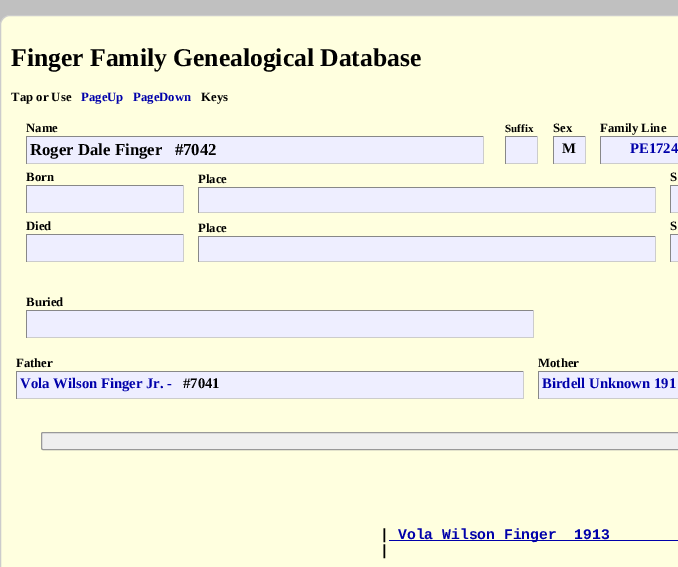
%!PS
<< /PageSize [678 567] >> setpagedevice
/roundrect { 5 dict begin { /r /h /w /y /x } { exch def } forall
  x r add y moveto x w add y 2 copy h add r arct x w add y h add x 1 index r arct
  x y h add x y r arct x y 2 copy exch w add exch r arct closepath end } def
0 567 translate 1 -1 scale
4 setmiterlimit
0.753 setgray
0 0 678 567 rectfill
1 1 0.875 setrgbcolor
0.5 15.5 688 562 9.5 roundrect gsave fill grestore
0.8 setgray
stroke
/LiberationSerif-Bold [25.6 0 0 -25.6 0 0] selectfont
0 setgray
11 66 moveto (Finger Family Genealogical Database) show
/LiberationSerif-Bold [12.75 0 0 -12.75 0 0] selectfont
11 101 moveto (Tap or Use) show
0 0 0.667 setrgbcolor
81 101 moveto (PageUp) show
133 101 moveto (PageDown) show
0 setgray
201 101 moveto (Keys) show
26 132 moveto (Name) show
0.933 0.933 1 setrgbcolor
27 137 456 26 rectfill
0.533 setgray
26 136 458 1 rectfill
0.8 setgray
483 136 1 28 rectfill
26 163 458 1 rectfill
0.533 setgray
26 136 1 28 rectfill
/LiberationSerif-Bold [16.75 0 0 -16.75 0 0] selectfont
0 setgray
30 155 moveto (Roger Dale Finger   #7042) show
/LiberationSerif-Bold [11 0 0 -11 0 0] selectfont
505 132 moveto (Suffix) show
0.933 0.933 1 setrgbcolor
506 137 31 26 rectfill
0.533 setgray
505 136 33 1 rectfill
0.8 setgray
537 136 1 28 rectfill
505 163 33 1 rectfill
0.533 setgray
505 136 1 28 rectfill
/LiberationSerif-Bold [12.75 0 0 -12.75 0 0] selectfont
0 setgray
553 132 moveto (Sex) show
0.933 0.933 1 setrgbcolor
554 137 31 26 rectfill
0.533 setgray
553 136 33 1 rectfill
0.8 setgray
585 136 1 28 rectfill
553 163 33 1 rectfill
0.533 setgray
553 136 1 28 rectfill
/LiberationSerif-Bold [14.7 0 0 -14.7 0 0] selectfont
0 setgray
562 153 moveto (M) show
/LiberationSerif-Bold [12.75 0 0 -12.75 0 0] selectfont
600 132 moveto (Family Line) show
0.933 0.933 1 setrgbcolor
601 137 77 26 rectfill
0.533 setgray
600 136 78 1 rectfill
0.8 setgray
600 163 78 1 rectfill
0.533 setgray
600 136 1 28 rectfill
/LiberationSerif-Bold [14.7 0 0 -14.7 0 0] selectfont
0 0 0.667 setrgbcolor
630 153 moveto (PE1724) show
/LiberationSerif-Bold [12.75 0 0 -12.75 0 0] selectfont
0 setgray
26 181 moveto (Born) show
0.933 0.933 1 setrgbcolor
27 186 156 26 rectfill
0.533 setgray
26 185 158 1 rectfill
0.8 setgray
183 185 1 28 rectfill
26 212 158 1 rectfill
0.533 setgray
26 185 1 28 rectfill
0 setgray
198 183 moveto (Place) show
0.933 0.933 1 setrgbcolor
199 188 456 24 rectfill
0.533 setgray
198 187 458 1 rectfill
0.8 setgray
655 187 1 26 rectfill
198 212 458 1 rectfill
0.533 setgray
198 187 1 26 rectfill
0 setgray
670 181 moveto (S) show
0.933 0.933 1 setrgbcolor
671 185 7 28 rectfill
0.533 setgray
670 185 8 1 rectfill
0.8 setgray
670 212 8 1 rectfill
0.533 setgray
670 185 1 28 rectfill
0 setgray
26 230 moveto (Died) show
0.933 0.933 1 setrgbcolor
27 235 156 26 rectfill
0.533 setgray
26 234 158 1 rectfill
0.8 setgray
183 234 1 28 rectfill
26 261 158 1 rectfill
0.533 setgray
26 234 1 28 rectfill
0 setgray
198 232 moveto (Place) show
0.933 0.933 1 setrgbcolor
199 237 456 24 rectfill
0.533 setgray
198 236 458 1 rectfill
0.8 setgray
655 236 1 26 rectfill
198 261 458 1 rectfill
0.533 setgray
198 236 1 26 rectfill
0 setgray
670 230 moveto (S) show
0.933 0.933 1 setrgbcolor
671 234 7 28 rectfill
0.533 setgray
670 234 8 1 rectfill
0.8 setgray
670 261 8 1 rectfill
0.533 setgray
670 234 1 28 rectfill
0 setgray
26 306 moveto (Buried) show
0.933 0.933 1 setrgbcolor
27 311 506 26 rectfill
0.533 setgray
26 310 508 1 rectfill
0.8 setgray
533 310 1 28 rectfill
26 337 508 1 rectfill
0.533 setgray
26 310 1 28 rectfill
0 setgray
16 367 moveto (Father) show
0.933 0.933 1 setrgbcolor
17 372 506 26 rectfill
0.533 setgray
16 371 508 1 rectfill
0.8 setgray
523 371 1 28 rectfill
16 398 508 1 rectfill
0.533 setgray
16 371 1 28 rectfill
/LiberationSerif-Bold [14.7 0 0 -14.7 0 0] selectfont
0 0 0.667 setrgbcolor
20 388 moveto (Vola Wilson Finger Jr. -) show
0 setgray
183 388 moveto (#7041) show
/LiberationSerif-Bold [12.75 0 0 -12.75 0 0] selectfont
538 367 moveto (Mother) show
0.933 0.933 1 setrgbcolor
539 372 139 26 rectfill
0.533 setgray
538 371 140 1 rectfill
0.8 setgray
538 398 140 1 rectfill
0.533 setgray
538 371 1 28 rectfill
/LiberationSerif-Bold [14.7 0 0 -14.7 0 0] selectfont
0 0 0.667 setrgbcolor
542 388 moveto (Birdell Unknown 191) show
0.937 setgray
41.5 432.5 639 17 1.5 roundrect gsave fill grestore
0.6 setgray
stroke
/LiberationMono-Bold [14.7 0 0 -14.7 0 0] selectfont
0 setgray
380 539 moveto (|) show
0 0 0.667 setrgbcolor
389 540 289 1 rectfill
398 539 moveto (Vola Wilson Finger  1913) show
0 setgray
380 555 moveto (|) show
showpage
